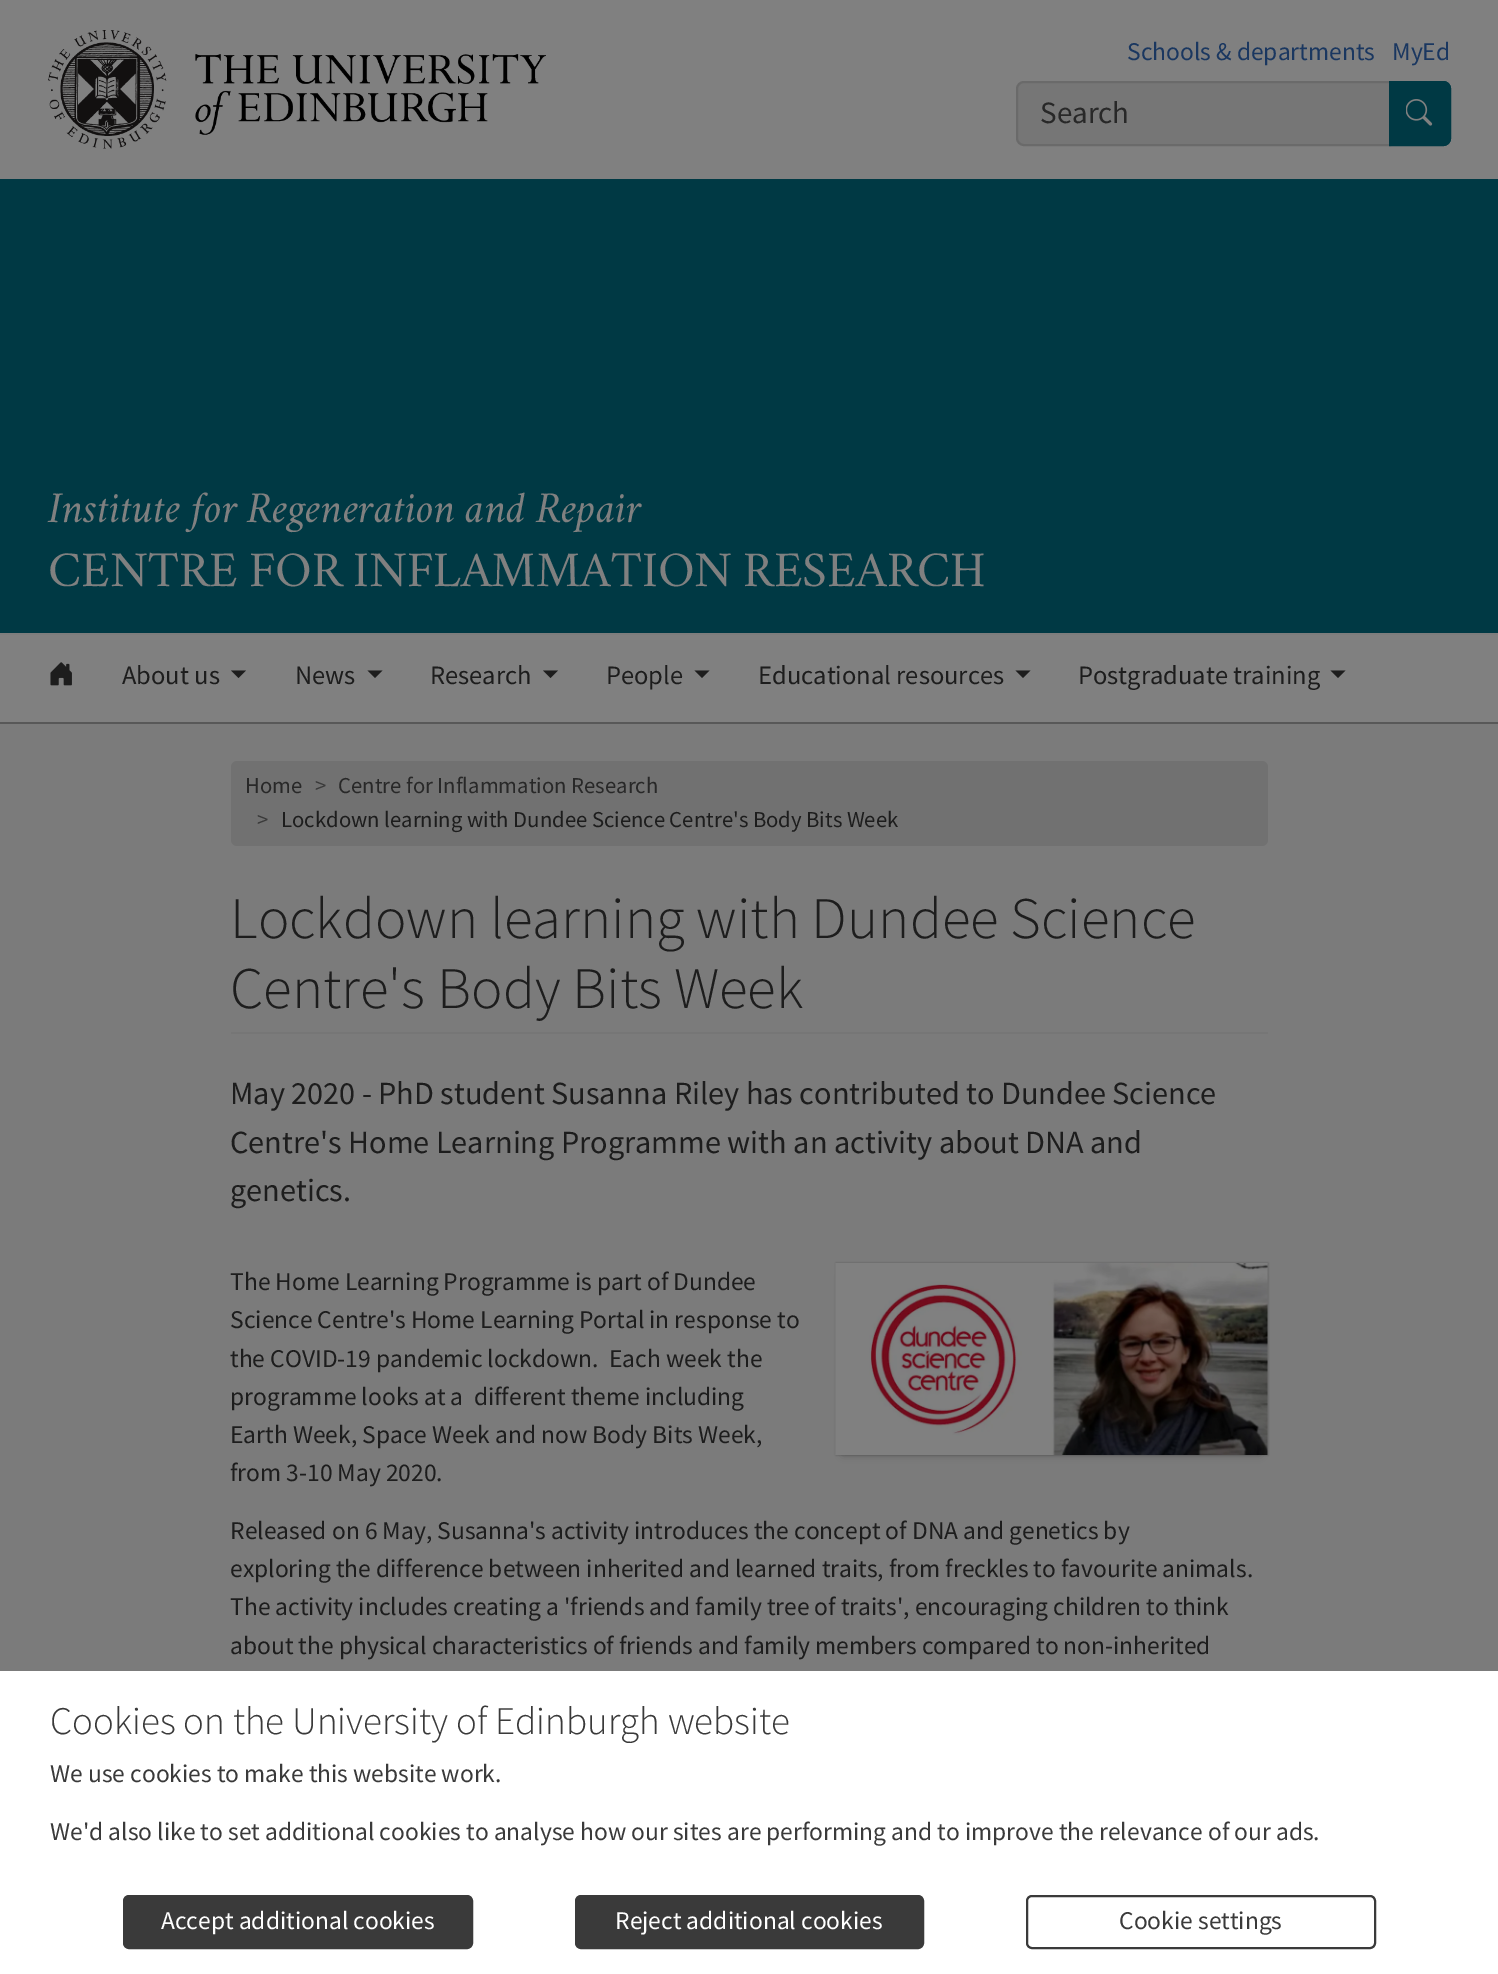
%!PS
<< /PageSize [1498 1974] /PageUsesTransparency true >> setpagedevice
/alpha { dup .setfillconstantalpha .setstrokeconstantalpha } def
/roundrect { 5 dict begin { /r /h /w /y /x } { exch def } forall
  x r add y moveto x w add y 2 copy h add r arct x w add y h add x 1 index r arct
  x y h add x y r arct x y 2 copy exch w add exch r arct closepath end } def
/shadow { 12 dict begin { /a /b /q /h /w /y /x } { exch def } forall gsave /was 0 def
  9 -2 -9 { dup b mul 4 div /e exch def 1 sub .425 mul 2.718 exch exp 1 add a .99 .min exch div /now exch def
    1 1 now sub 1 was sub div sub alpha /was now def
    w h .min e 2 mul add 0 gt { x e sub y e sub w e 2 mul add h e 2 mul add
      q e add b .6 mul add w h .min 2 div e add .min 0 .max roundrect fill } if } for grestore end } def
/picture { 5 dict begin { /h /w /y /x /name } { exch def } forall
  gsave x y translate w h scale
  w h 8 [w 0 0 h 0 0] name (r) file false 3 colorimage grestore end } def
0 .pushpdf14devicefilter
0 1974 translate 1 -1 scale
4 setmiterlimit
0.502 setgray
0 0 1498 1974 rectfill
(img1.rgb) 48 30 498 119 picture
/SourceSansPro-Regular [25.5 0 0 -25.5 0 0] selectfont
0.102 0.216 0.376 setrgbcolor
1127 60 moveto (Schools & departments) show
1392 60 moveto (MyEd) show
0.463 setgray
newpath 1024 82 moveto 1390 82 lineto 1390 145 lineto 1024 145 lineto 1020 145 1017 142 1017 138 curveto 1017 89 lineto 1017 85 1020 82 1024 82 curveto closepath gsave fill grestore
0.416 setgray
2 setlinewidth
stroke
/SourceSansPro-Regular [31 0 0 -31 0 0] selectfont
0.157 setgray
1040 123 moveto (Search) show
0 0.224 0.267 setrgbcolor
newpath 1389 81 moveto 1443 81 lineto 1447.5 81 1451 84.5 1451 89 curveto 1451 138 lineto 1451 142.5 1447.5 146 1443 146 curveto 1389 146 lineto closepath fill
(img2.rgb) 1406 99 27 27 picture
newpath 1390 82 moveto 1443 82 lineto 1447 82 1450 85 1450 89 curveto 1450 138 lineto 1450 142 1447 145 1443 145 curveto 1390 145 lineto closepath stroke
0 179 1498 454 rectfill
/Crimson-Italic [44.25 0 0 -44.25 0 0] selectfont
0.502 setgray
48 522 moveto (Institute for Regeneration and Repair) show
/Crimson-Regular [50.25 0 0 -50.25 0 0] selectfont
48 586 moveto (CENTRE FOR INFLAMMATION RESEARCH) show
0.49 setgray
0 633 1498 2 rectfill
0.345 setgray
0 722 1498 2 rectfill
(img3.rgb) 50 662 22 24 picture
/SourceSansPro-Regular [26.5 0 0 -26.5 0 0] selectfont
0.114 setgray
122 684 moveto (About us) show
newpath 231 670.5 moveto 246 670.5 lineto 238.5 678 lineto closepath fill
295 684 moveto (News) show
newpath 367.5 670.5 moveto 382.5 670.5 lineto 375 678 lineto closepath fill
430 684 moveto (Research) show
newpath 543 670.5 moveto 558 670.5 lineto 550.5 678 lineto closepath fill
606 684 moveto (People) show
newpath 694.5 670.5 moveto 709.5 670.5 lineto 702 678 lineto closepath fill
758 684 moveto (Educational resources) show
newpath 1015.5 670.5 moveto 1030.5 670.5 lineto 1023 678 lineto closepath fill
1078 684 moveto (Postgraduate training) show
newpath 1330.5 670.5 moveto 1345.5 670.5 lineto 1338 678 lineto closepath fill
0.482 setgray
0 724 1498 947 rectfill
0.443 setgray
231 761 1037 85 6 roundrect fill
/SourceSansPro-Regular [22.7 0 0 -22.7 0 0] selectfont
0.157 setgray
245 793 moveto (Home) show
0.227 setgray
315 793 moveto (>) show
0.157 setgray
338 793 moveto (Centre for Inflammation Research) show
0.227 setgray
257 827 moveto (>) show
0.114 setgray
281 827 moveto (Lockdown learning with Dundee Science Centre's Body Bits Week) show
0.463 setgray
231 1032 1037 2 rectfill
/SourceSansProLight-Light [58.9 0 0 -58.9 0 0] selectfont
0.114 setgray
230 938 moveto (Lockdown learning with Dundee Science) show
230 1008 moveto (Centre's Body Bits Week) show
/SourceSansPro-Regular [32.25 0 0 -32.25 0 0] selectfont
230 1104 moveto (May 2020 - PhD student Susanna Riley has contributed to Dundee Science) show
230 1153 moveto (Centre's Home Learning Programme with an activity about DNA and) show
230 1201 moveto (genetics.) show
/SourceSansPro-Regular [25.5 0 0 -25.5 0 0] selectfont
230 1290 moveto (The Home Learning Programme is part of Dundee) show
230 1328 moveto (Science Centre's Home Learning Portal in response to) show
230 1367 moveto (the COVID-19 pandemic lockdown.  Each week the) show
230 1405 moveto (programme looks at a  different theme including) show
230 1443 moveto (Earth Week, Space Week and now Body Bits Week,) show
230 1481 moveto (from 3-10 May 2020.) show
0 setgray
836 1263 432 192 0 1 0.3 shadow
843 1277 417 177 0 4.5 0.3 shadow
(img4.rgb) 835 1263 433 192 picture
0.114 setgray
230 1539 moveto (Released on 6 May, Susanna's activity introduces the concept of DNA and genetics by) show
230 1577 moveto (exploring the difference between inherited and learned traits, from freckles to favourite animals.) show
230 1615 moveto (The activity includes creating a 'friends and family tree of traits', encouraging children to think) show
230 1654 moveto (about the physical characteristics of friends and family members compared to non-inherited) show
1 setgray
0 1671 1498 303 rectfill
/SourceSansProLight-Light [39 0 0 -39 0 0] selectfont
0.227 setgray
50 1734 moveto (Cookies on the University of Edinburgh website) show
/SourceSansPro-Regular [25.5 0 0 -25.5 0 0] selectfont
50 1782 moveto (We use cookies to make this website work.) show
50 1840 moveto (We'd also like to set additional cookies to analyse how our sites are performing and to improve the relevance of our ads.) show
124 1896 348 52 5 roundrect gsave fill grestore
stroke
1 setgray
161 1929 moveto (Accept additional cookies) show
0.227 setgray
576 1896 347 52 5 roundrect gsave fill grestore
stroke
1 setgray
615 1929 moveto (Reject additional cookies) show
0.227 setgray
1027 1896 348 52 5 roundrect stroke
1119 1929 moveto (Cookie settings) show
.poppdf14devicefilter showpage
